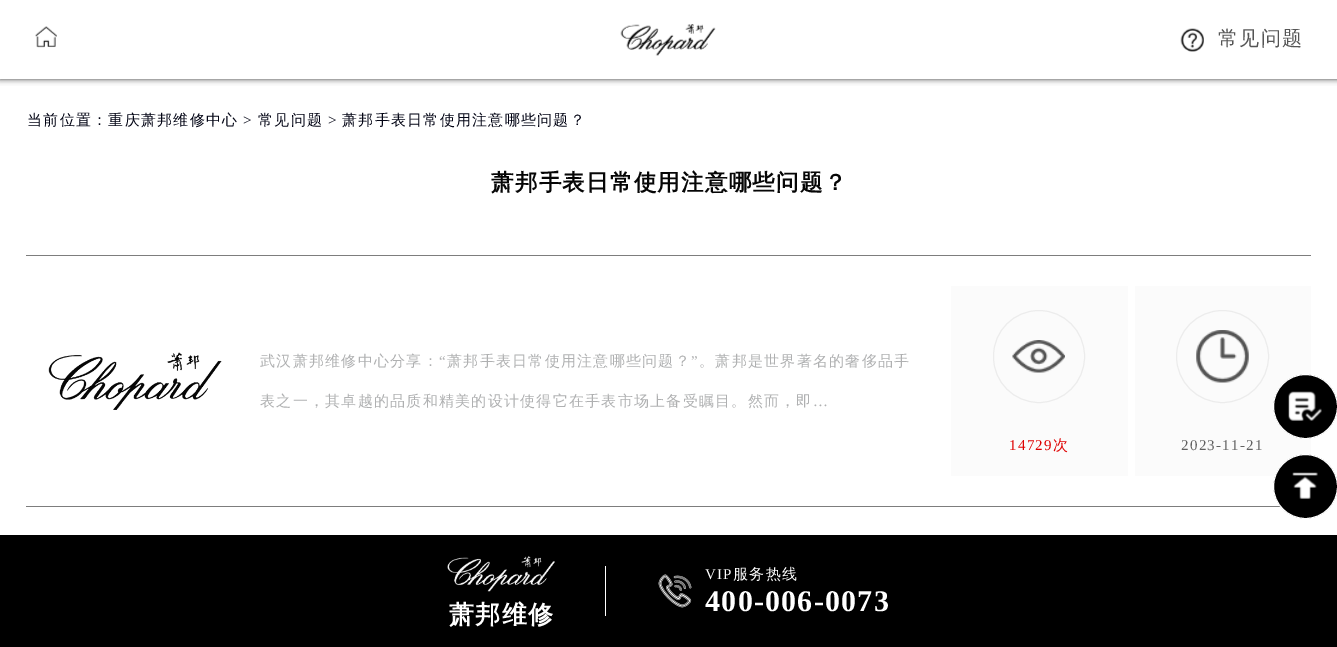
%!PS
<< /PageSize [1337 647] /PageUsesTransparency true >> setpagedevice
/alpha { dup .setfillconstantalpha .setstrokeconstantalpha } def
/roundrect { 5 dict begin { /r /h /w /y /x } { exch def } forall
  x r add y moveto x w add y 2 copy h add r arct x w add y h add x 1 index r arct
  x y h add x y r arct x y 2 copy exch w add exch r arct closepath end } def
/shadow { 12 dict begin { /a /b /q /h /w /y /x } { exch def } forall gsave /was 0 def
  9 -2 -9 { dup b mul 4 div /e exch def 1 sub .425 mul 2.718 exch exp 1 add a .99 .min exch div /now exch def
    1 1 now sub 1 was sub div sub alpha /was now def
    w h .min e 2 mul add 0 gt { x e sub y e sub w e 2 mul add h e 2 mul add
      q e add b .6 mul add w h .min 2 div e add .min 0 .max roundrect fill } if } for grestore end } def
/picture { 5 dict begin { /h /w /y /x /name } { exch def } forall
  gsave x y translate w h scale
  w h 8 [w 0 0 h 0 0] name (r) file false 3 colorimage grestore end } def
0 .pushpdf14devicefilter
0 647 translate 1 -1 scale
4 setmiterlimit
1 setgray
0 0 1337 647 rectfill
0.2 setgray
0 0 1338 79 0 3 1 shadow
1 setgray
0 0 1337 79 rectfill
(img1.rgb) 35 26 22 22 picture
(img2.rgb) 620 24 96 32 picture
(img3.rgb) 1180 28 24 24 picture
/WenQuanYiZenHei-Medium [20 0 0 -20 0 0] selectfont
0.333 setgray
1218 45 moveto 1.25 0 (常见问题) ashow
/WenQuanYiZenHei-Medium [15 0 0 -15 0 0] selectfont
0.008 0.016 0.078 setrgbcolor
27 125 moveto 1.25 0 (当前位置：重庆萧邦维修中心) ashow
/LiberationSerif-Regular [15 0 0 -15 0 0] selectfont
243 125 moveto 1.25 0 (>) ashow
/WenQuanYiZenHei-Medium [15 0 0 -15 0 0] selectfont
258 125 moveto 1.25 0 (常见问题) ashow
/LiberationSerif-Regular [15 0 0 -15 0 0] selectfont
328 125 moveto 1.25 0 (>) ashow
/WenQuanYiZenHei-Medium [15 0 0 -15 0 0] selectfont
342 125 moveto 1.25 0 (萧邦手表日常使用注意哪些问题？) ashow
/WenQuanYiZenHei-Bold [22.5 0 0 -22.5 0 0] selectfont
0.024 setgray
491 190 moveto 1.25 0 (萧邦手表日常使用注意哪些问题？) ashow
0.49 setgray
26 255 1285 1 rectfill
26 506 1255 1 rectfill
(img4.rgb) 48 352 174 58 picture
/WenQuanYiZenHei-Medium [15 0 0 -15 0 0] selectfont
0.686 0.69 0.694 setrgbcolor
260 366 moveto 1.25 0 (武汉萧邦维修中心分享：) ashow
/LiberationSerif-Regular [15 0 0 -15 0 0] selectfont
439 366 moveto 1.25 0 (“) ashow
/WenQuanYiZenHei-Medium [15 0 0 -15 0 0] selectfont
447 366 moveto 1.25 0 (萧邦手表日常使用注意哪些问题？) ashow
/LiberationSerif-Regular [15 0 0 -15 0 0] selectfont
691 366 moveto 1.25 0 (”) ashow
/WenQuanYiZenHei-Medium [15 0 0 -15 0 0] selectfont
699 366 moveto 1.25 0 (。萧邦是世界著名的奢侈品手) ashow
260 406 moveto 1.25 0 (表之一，其卓越的品质和精美的设计使得它在手表市场上备受瞩目。然而，即) ashow
/LiberationSerif-Regular [15 0 0 -15 0 0] selectfont
813 406 moveto 1.25 0 (…) ashow
0.984 setgray
951 286 177 190 rectfill
0.925 setgray
993.5 310.5 91 92 45.5 roundrect stroke
(img5.rgb) 1012 340 53 33 picture
0.871 0 0 setrgbcolor
1009 450 moveto 1.25 0 (14729) ashow
/WenQuanYiZenHei-Medium [15 0 0 -15 0 0] selectfont
1053 450 moveto 1.25 0 (次) ashow
0.984 setgray
1135 286 176 190 rectfill
0.925 setgray
newpath 1222.5 356.5 46 0 360 arc closepath stroke
(img6.rgb) 1196 330 53 53 picture
/LiberationSerif-Regular [15 0 0 -15 0 0] selectfont
0.38 setgray
1181 450 moveto 1.25 0 (2023-11-21) ashow
0 setgray
newpath 1305.5 406.5 32 0 360 arc closepath gsave fill grestore
1 setgray
stroke
(img7.rgb) 1288 391 34 30 picture
0 setgray
newpath 1305.5 486.5 32 0 360 arc closepath gsave fill grestore
1 setgray
stroke
(img8.rgb) 1292 472 26 27 picture
0 setgray
0 535 1337 112 rectfill
(img9.rgb) 447 556 108 36 picture
/WenQuanYiZenHei-Bold [25 0 0 -25 0 0] selectfont
1 setgray
449 623 moveto 1.25 0 (萧邦维修) ashow
605 566 1 50 rectfill
(img10.rgb) 658 574 34 34 picture
/LiberationSerif-Regular [15 0 0 -15 0 0] selectfont
705 579 moveto 1.25 0 (VIP) ashow
/WenQuanYiZenHei-Medium [15 0 0 -15 0 0] selectfont
733 579 moveto 1.25 0 (服务热线) ashow
/LiberationSerif-Bold [30 0 0 -30 0 0] selectfont
705 611 moveto 1.25 0 (400-006-0073) ashow
.poppdf14devicefilter showpage
